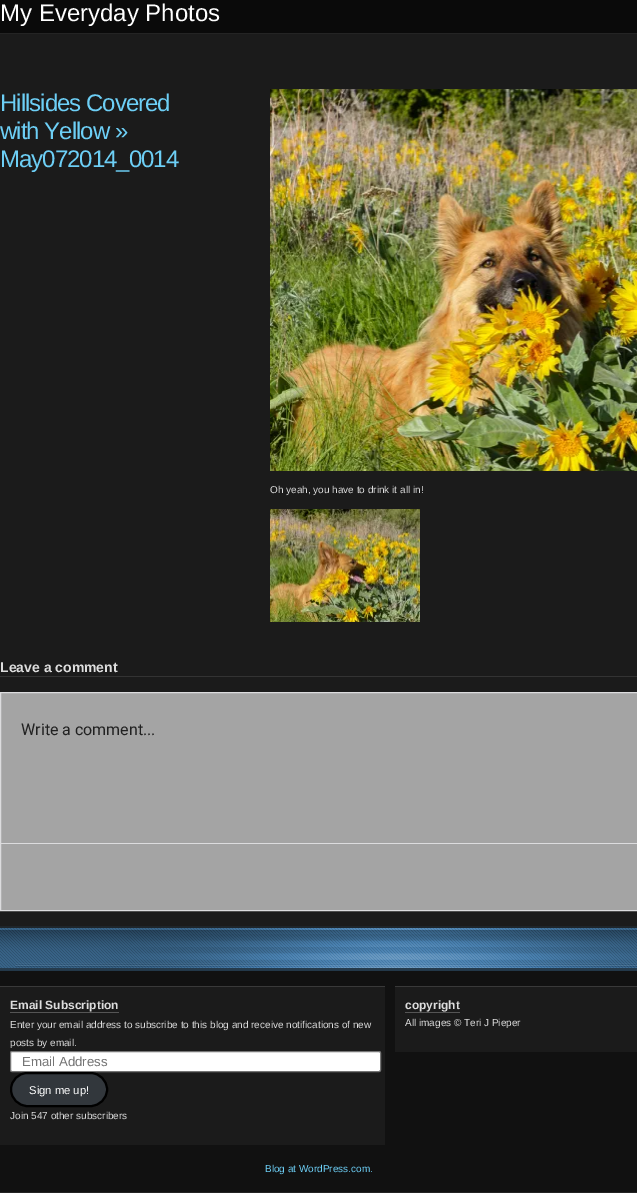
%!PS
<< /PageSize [637 1193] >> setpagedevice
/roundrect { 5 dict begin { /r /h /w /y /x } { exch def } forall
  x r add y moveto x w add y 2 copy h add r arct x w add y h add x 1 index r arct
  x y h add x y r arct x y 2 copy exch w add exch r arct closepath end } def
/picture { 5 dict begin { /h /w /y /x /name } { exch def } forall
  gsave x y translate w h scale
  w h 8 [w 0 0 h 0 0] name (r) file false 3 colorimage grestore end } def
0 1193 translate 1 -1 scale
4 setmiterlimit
0.106 setgray
0 0 637 1193 rectfill
0.039 setgray
0 0 637 33 rectfill
0.141 setgray
0 33 637 1 rectfill
/LiberationSans-Regular [24 0 0 -24 0 0] selectfont
1 setgray
0 21 moveto (My Everyday Photos) show
0.427 0.812 0.965 setrgbcolor
0 111 moveto -1 0 (Hillsides Covered) ashow
0 139 moveto -1 0 (with Yellow ») ashow
0 167 moveto -1 0 (May072014_0014) ashow
(img1.rgb) 270 89 367 382 picture
/LiberationSans-Regular [10 0 0 -10 0 0] selectfont
0.867 setgray
270 493 moveto (Oh yeah, you have to drink it all in!) show
(img2.rgb) 270 509 150 113 picture
0.2 setgray
0 676 637 1 rectfill
/LiberationSans-Bold [14 0 0 -14 0 0] selectfont
0.867 setgray
0 672 moveto (Leave a comment) show
0.643 setgray
newpath 0.5 692.5 moveto 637.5 692.5 lineto 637.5 910.5 lineto 0.5 910.5 lineto closepath gsave fill grestore
0.863 0.863 0.871 setrgbcolor
stroke
/Roboto-Regular [16 0 0 -16 0 0] selectfont
0.129 setgray
21 735 moveto (Write a comment...) show
0.863 0.863 0.871 setrgbcolor
1 843 636 1 rectfill
0.067 setgray
0 971 637 221 rectfill
(img3.rgb) 0 926 637 45 picture
(img4.rgb) 0 928 637 40 picture
0.106 setgray
0 987 385 158 rectfill
0.224 setgray
0 986 385 1 rectfill
/LiberationSans-Bold [12 0 0 -12 0 0] selectfont
0.867 setgray
10 1009 moveto (Email Subscription) show
0.333 setgray
10 1012 109 1 rectfill
/LiberationSans-Regular [10 0 0 -10 0 0] selectfont
0.867 setgray
10 1028 moveto (Enter your email address to subscribe to this blog and receive notifications of new) show
10 1046 moveto (posts by email.) show
1 setgray
10.5 1051.5 370 20 1.5 roundrect gsave fill grestore
0.463 setgray
stroke
/LiberationSans-Regular [13.25 0 0 -13.25 0 0] selectfont
0.459 setgray
22 1066 moveto (Email Address) show
0.196 0.216 0.235 setrgbcolor
11 1073 96 33 16.5 roundrect gsave fill grestore
0 setgray
2 setlinewidth
stroke
/LiberationSans-Regular [11.25 0 0 -11.25 0 0] selectfont
1 setgray
29 1094 moveto (Sign me up!) show
/LiberationSans-Regular [10 0 0 -10 0 0] selectfont
0.867 setgray
10 1119 moveto (Join 547 other subscribers) show
0.106 setgray
395 987 242 65 rectfill
0.224 setgray
395 986 242 1 rectfill
/LiberationSans-Bold [12 0 0 -12 0 0] selectfont
0.867 setgray
405 1009 moveto (copyright) show
0.333 setgray
405 1012 55 1 rectfill
/LiberationSans-Regular [10 0 0 -10 0 0] selectfont
0.867 setgray
405 1026 moveto (All images © Teri J Pieper) show
0.141 setgray
0 1192 637 1 rectfill
0.427 0.812 0.965 setrgbcolor
265 1172 moveto (Blog at WordPress.com.) show
showpage
